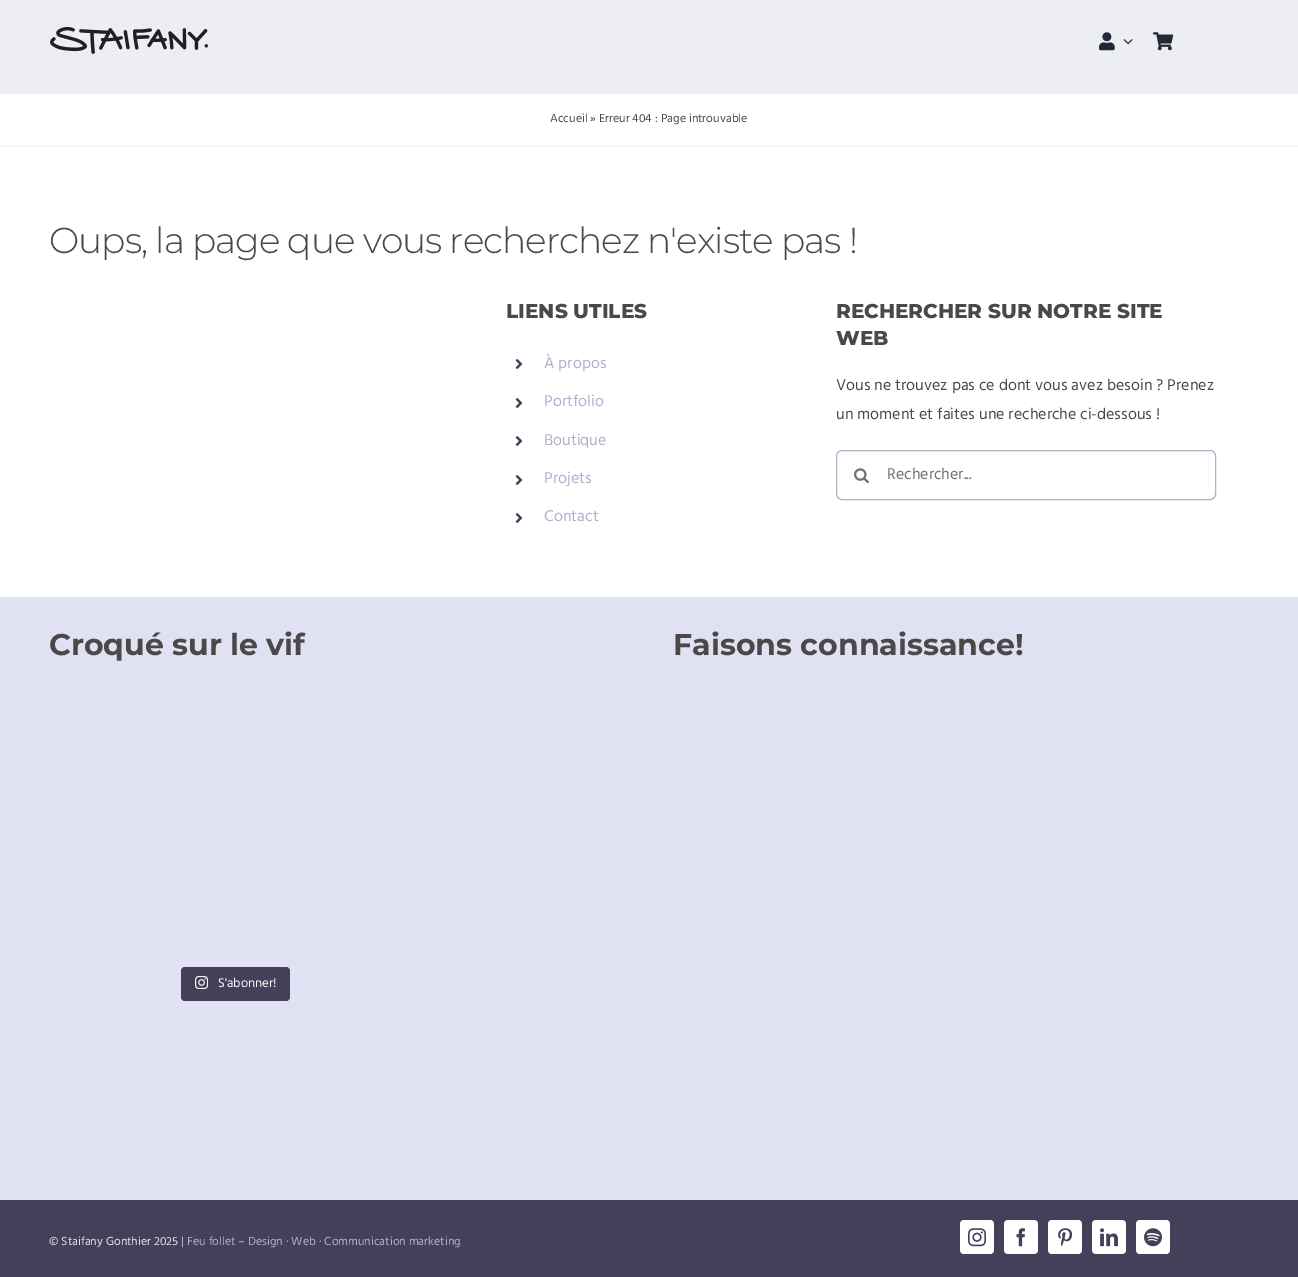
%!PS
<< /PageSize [1298 1277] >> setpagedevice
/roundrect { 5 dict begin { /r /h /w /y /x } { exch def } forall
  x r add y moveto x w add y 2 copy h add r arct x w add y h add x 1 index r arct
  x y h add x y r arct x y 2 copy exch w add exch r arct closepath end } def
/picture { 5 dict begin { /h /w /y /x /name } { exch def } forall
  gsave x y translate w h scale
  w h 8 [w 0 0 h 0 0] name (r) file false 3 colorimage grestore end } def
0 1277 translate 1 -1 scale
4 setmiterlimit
1 setgray
0 0 1298 1277 rectfill
0.929 0.929 0.957 setrgbcolor
0 0 1298 93 rectfill
(img1.rgb) 50 27 158 27 picture
(img2.rgb) 1099 32 16 19 picture
(img3.rgb) 1123 39 10 6 picture
(img4.rgb) 1153 32 21 19 picture
0.941 0.941 0.98 setrgbcolor
0 93 1298 1 rectfill
0 146 1298 1 rectfill
/Hind-Regular [12 0 0 -12 0 0] selectfont
0.298 0.282 0.282 setrgbcolor
550 122 moveto (Accueil » Erreur 404 : Page introuvable) show
/Montserrat-Light [36 0 0 -36 0 0] selectfont
49 253 moveto -1 0 (Oups, la page que vous recherchez n'existe pas !) ashow
/Montserrat-ExtraBold [20 0 0 -20 0 0] selectfont
506 318 moveto (LIENS UTILES) show
(img5.rgb) 515 359 8 10 picture
/Hind-Regular [16 0 0 -16 0 0] selectfont
0.702 0.686 0.8 setrgbcolor
544 368 moveto (À propos) show
(img5.rgb) 515 398 8 10 picture
544 406 moveto (Portfolio) show
(img5.rgb) 515 436 8 10 picture
544 445 moveto (Boutique) show
(img5.rgb) 515 475 8 10 picture
544 483 moveto (Projets) show
(img5.rgb) 515 513 8 10 picture
544 521 moveto (Contact) show
/Montserrat-ExtraBold [20 0 0 -20 0 0] selectfont
0.298 0.282 0.282 setrgbcolor
836 318 moveto (RECHERCHER SUR NOTRE SITE) show
836 345 moveto (WEB) show
/Hind-Regular [16 0 0 -16 0 0] selectfont
836 390 moveto (Vous ne trouvez pas ce dont vous avez besoin ? Prenez) show
836 419 moveto (un moment et faites une recherche ci-dessous !) show
0.702 0.686 0.8 setrgbcolor
836.5 450.5 379 49 5.5 roundrect stroke
(img6.rgb) 854 468 15 16 picture
0.447 0.443 0.443 setrgbcolor
887 479 moveto (Rechercher...) show
0.882 0.882 0.957 setrgbcolor
0 597 1298 603 rectfill
/Montserrat-Bold [30 0 0 -30 0 0] selectfont
0.298 0.282 0.282 setrgbcolor
49 655 moveto (Croqué sur le vif) show
0.271 0.251 0.353 setrgbcolor
181 967 109 34 4 roundrect fill
(img7.rgb) 195 976 13 13 picture
/Hind-Regular [13 0 0 -13 0 0] selectfont
1 0.976 0.961 setrgbcolor
218 987 moveto (S'abonner!) show
/Montserrat-Bold [30 0 0 -30 0 0] selectfont
0.298 0.282 0.282 setrgbcolor
673 655 moveto (Faisons connaissance!) show
0.271 0.251 0.353 setrgbcolor
0 1200 1298 77 rectfill
/Hind-Regular [12 0 0 -12 0 0] selectfont
0.882 0.882 0.957 setrgbcolor
49 1245 moveto (© Staifany Gonthier 2025 |) show
0.702 0.686 0.8 setrgbcolor
187 1245 moveto (Feu follet – Design · Web · Communication marketing) show
1 setgray
960 1220 34 34 4 roundrect fill
(img8.rgb) 968 1228 18 19 picture
1004 1220 34 34 4 roundrect fill
(img9.rgb) 1016 1228 9 19 picture
1048 1220 34 34 4 roundrect fill
(img10.rgb) 1058 1228 15 19 picture
1092 1220 34 34 4 roundrect fill
(img11.rgb) 1100 1228 18 19 picture
1136 1220 34 34 4 roundrect fill
(img12.rgb) 1144 1228 18 19 picture
showpage
